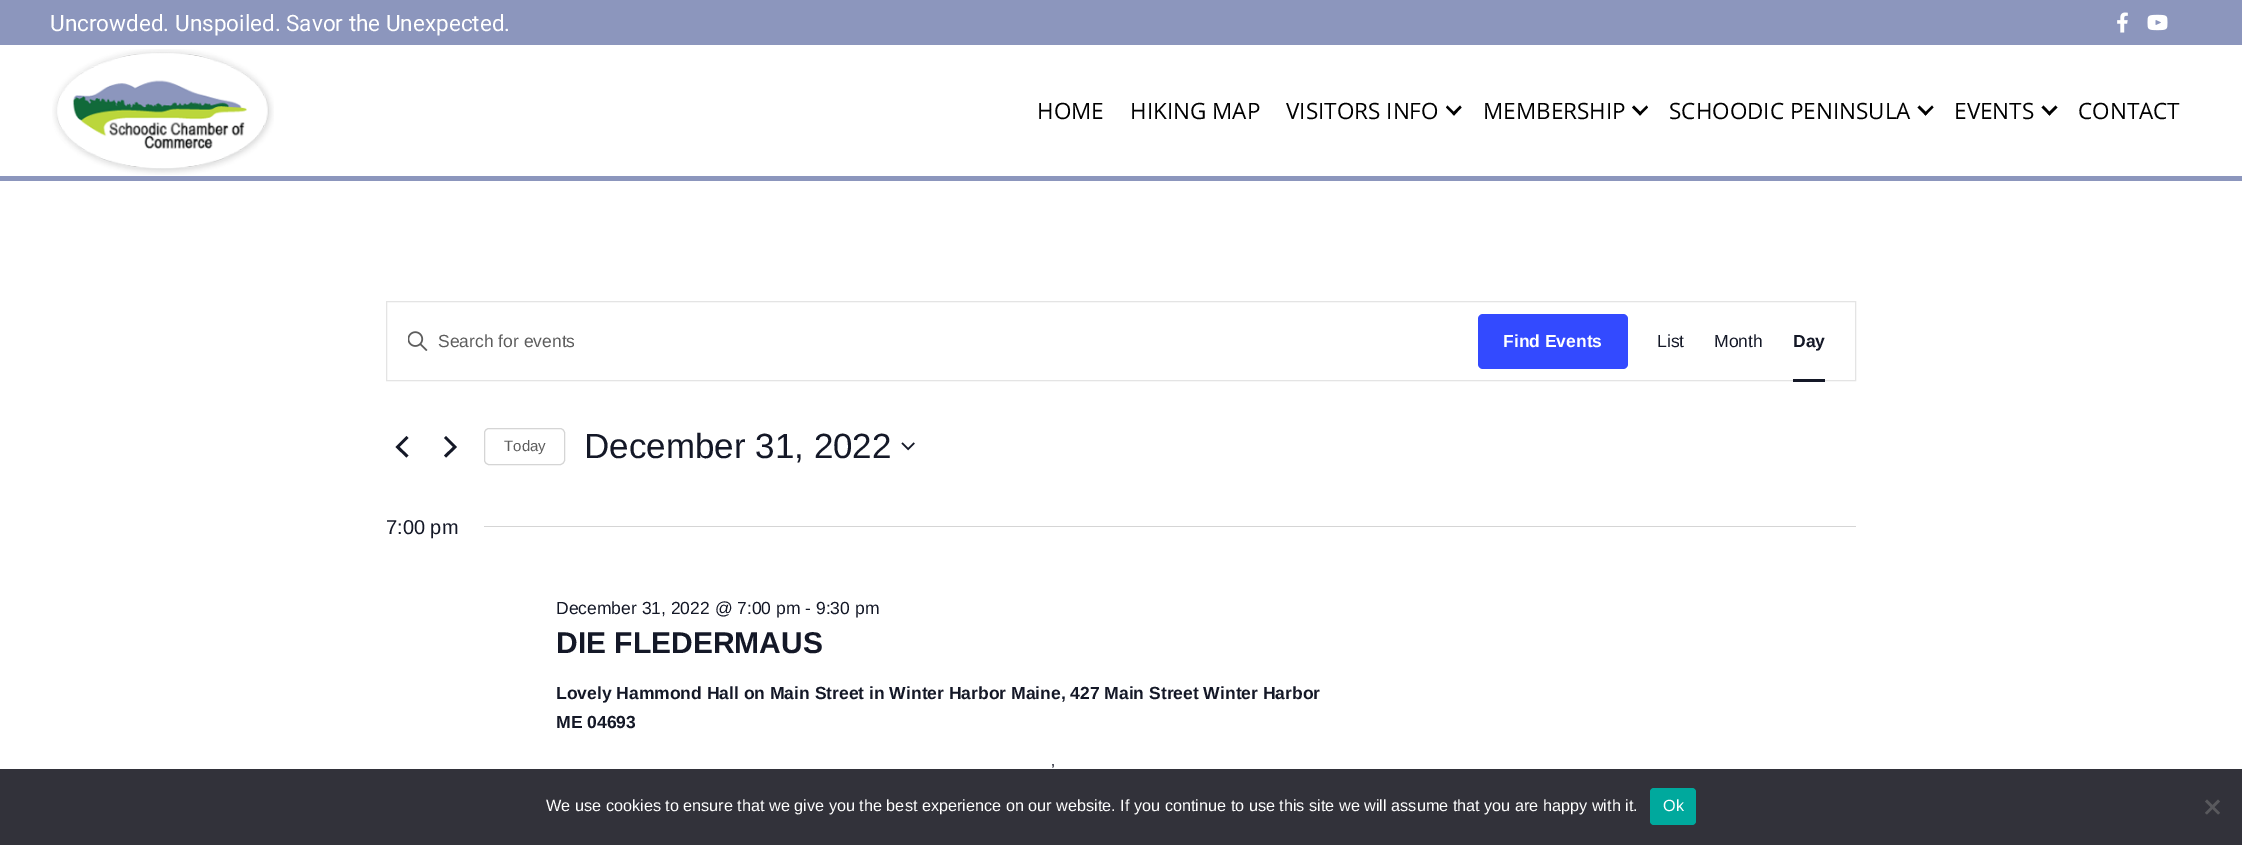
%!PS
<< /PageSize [2242 845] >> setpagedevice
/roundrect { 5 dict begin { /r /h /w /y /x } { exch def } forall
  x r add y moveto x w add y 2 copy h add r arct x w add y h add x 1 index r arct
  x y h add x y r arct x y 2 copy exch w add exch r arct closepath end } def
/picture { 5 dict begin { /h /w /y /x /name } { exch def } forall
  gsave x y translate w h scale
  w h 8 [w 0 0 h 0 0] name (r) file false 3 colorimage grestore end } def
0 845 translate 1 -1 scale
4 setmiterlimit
1 setgray
0 0 2242 845 rectfill
0.549 0.588 0.741 setrgbcolor
0 0 2242 45 rectfill
/Roboto-Regular [22.5 0 0 -22.5 0 0] selectfont
1 setgray
50 31 moveto (Uncrowded. Unspoiled. Savor the Unexpected.) show
(img1.rgb) 2117 12 11 21 picture
(img2.rgb) 2147 14 21 17 picture
0.549 0.588 0.741 setrgbcolor
0 176 2242 5 rectfill
(img3.rgb) 52 49 222 126 picture
/OpenSans-Regular [22.5 0 0 -22.5 0 0] selectfont
0 setgray
1037 119 moveto (HOME) show
1130 119 moveto (HIKING MAP) show
1286 119 moveto (VISITORS INFO) show
newpath 1460 105.5 moveto 1461.5 107.5 lineto 1454 115.5 lineto 1452 113.5 lineto closepath fill
newpath 1447.5 105.5 moveto 1455.5 113.5 lineto 1454 115.5 lineto 1446 107.5 lineto closepath fill
1483 119 moveto (MEMBERSHIP) show
newpath 1646.5 105.5 moveto 1648 107.5 lineto 1640 115.5 lineto 1638.5 113.5 lineto closepath fill
newpath 1634 105.5 moveto 1642 113.5 lineto 1640 115.5 lineto 1632 107.5 lineto closepath fill
1669 119 moveto (SCHOODIC PENINSULA) show
newpath 1932 105.5 moveto 1933.5 107.5 lineto 1925.5 115.5 lineto 1924 113.5 lineto closepath fill
newpath 1919.5 105.5 moveto 1927.5 113.5 lineto 1925.5 115.5 lineto 1917.5 107.5 lineto closepath fill
1954 119 moveto (EVENTS) show
newpath 2055.5 105.5 moveto 2057.5 107.5 lineto 2049.5 115.5 lineto 2047.5 113.5 lineto closepath fill
newpath 2043.5 105.5 moveto 2051 113.5 lineto 2049.5 115.5 lineto 2041.5 107.5 lineto closepath fill
2078 119 moveto (CONTACT) show
0.894 setgray
386.5 301.5 1469 79 rectstroke
(img4.rgb) 408 331 20 20 picture
/LiberationSans-Regular [17.5 0 0 -17.5 0 0] selectfont
0.365 setgray
438 347 moveto (Search for events) show
0.2 0.29 1 setrgbcolor
1478 314 150 55 5 roundrect fill
/LiberationSans-Bold [17.5 0 0 -17.5 0 0] selectfont
1 setgray
1503 347 moveto (Find Events) show
/LiberationSans-Regular [17.5 0 0 -17.5 0 0] selectfont
0.078 0.094 0.153 setrgbcolor
1657 347 moveto (List) show
1714 347 moveto (Month) show
/LiberationSans-Bold [17.5 0 0 -17.5 0 0] selectfont
1793 347 moveto (Day) show
1793 379 32 3 rectfill
newpath 408.5 455.5 moveto 406.5 457.5 lineto 395.5 447 lineto 406.5 436 lineto 408.5 438 lineto 399.5 447 lineto closepath 444 438 moveto 446 436 lineto 457 447 lineto 446 457.5 lineto 444 455.5 lineto 453 447 lineto closepath fill
0.835 setgray
484.5 428.5 80 36 4.5 roundrect stroke
/LiberationSans-Regular [15 0 0 -15 0 0] selectfont
0.365 setgray
504 451 moveto (Today) show
/LiberationSans-Regular [35 0 0 -35 0 0] selectfont
0.078 0.094 0.153 setrgbcolor
584 458 moveto (December 31, 2022) show
(img5.rgb) 901 442 14 9 picture
/LiberationSans-Regular [20 0 0 -20 0 0] selectfont
386 534 moveto (7:00 pm) show
0.835 setgray
484 526 1372 1 rectfill
/LiberationSans-Regular [17.5 0 0 -17.5 0 0] selectfont
0.078 0.094 0.153 setrgbcolor
556 614 moveto (December 31, 2022 @ 7:00 pm - 9:30 pm) show
/LiberationSans-Bold [30 0 0 -30 0 0] selectfont
556 653 moveto (DIE FLEDERMAUS) show
/LiberationSans-Bold [17.5 0 0 -17.5 0 0] selectfont
556 699 moveto (Lovely Hammond Hall on Main Street in Winter Harbor Maine, 427 Main Street Winter Harbor) show
556 728 moveto (ME 04693) show
/LiberationSans-Regular [17.5 0 0 -17.5 0 0] selectfont
1051 776 moveto (’) show
0.196 0.196 0.227 setrgbcolor
0 769 2242 76 rectfill
/LiberationSans-Regular [16.25 0 0 -16.25 0 0] selectfont
1 setgray
546 811 moveto (We use cookies to ensure that we give you the best experience on our website. If you continue to use this site we will assume that you are happy with it.) show
0 0.663 0.616 setrgbcolor
1650 788 46 37 4 roundrect fill
1 setgray
1663 811 moveto (Ok) show
0.349 0.349 0.365 setrgbcolor
newpath 2218 799.5 moveto 2220 801.5 lineto 2207 814.5 lineto 2205 813 lineto closepath fill
newpath 2205 801.5 moveto 2207 799.5 lineto 2220 813 lineto 2218 814.5 lineto closepath fill
showpage
